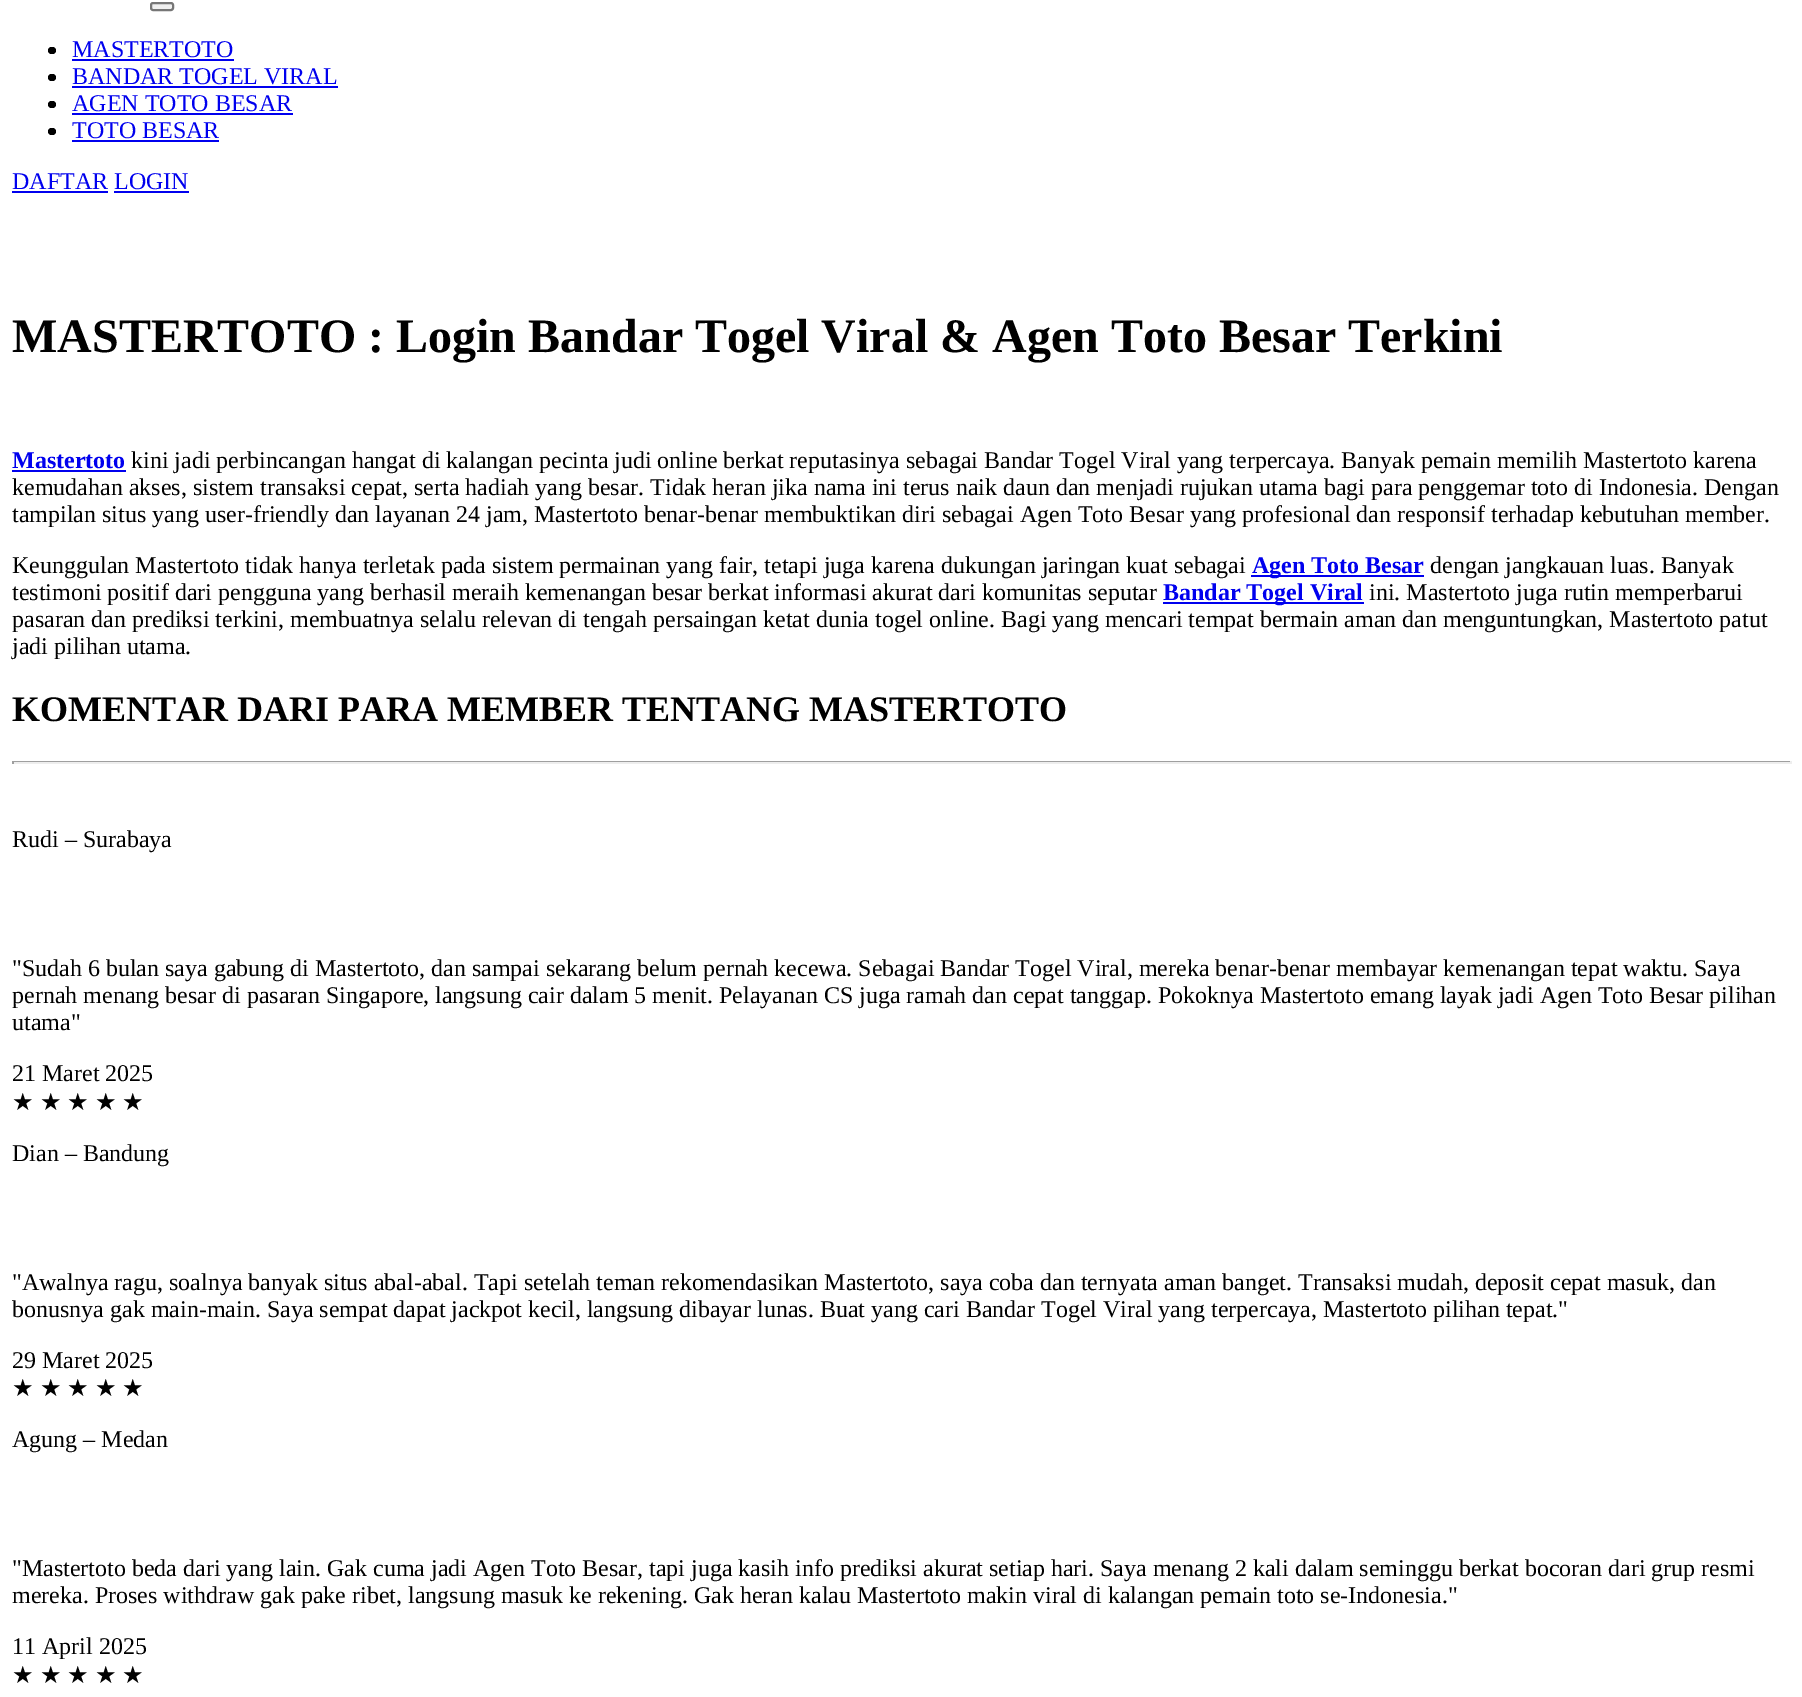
%!PS
<< /PageSize [1802 1697] >> setpagedevice
/roundrect { 5 dict begin { /r /h /w /y /x } { exch def } forall
  x r add y moveto x w add y 2 copy h add r arct x w add y h add x 1 index r arct
  x y h add x y r arct x y 2 copy exch w add exch r arct closepath end } def
0 1697 translate 1 -1 scale
4 setmiterlimit
1 setgray
0 0 1802 1697 rectfill
0.937 setgray
151 3 22 7 2 roundrect gsave fill grestore
0.463 setgray
2 setlinewidth
stroke
0 setgray
48 47 8 7 3.5 roundrect fill
/LiberationSerif-Regular [24 0 0 -24 0 0] selectfont
0 0 0.933 setrgbcolor
72 57 moveto (MASTERTOTO) show
72 59 162 2 rectfill
0 setgray
48 74 8 7 3.5 roundrect fill
0 0 0.933 setrgbcolor
72 84 moveto (BANDAR TOGEL VIRAL) show
72 86 266 2 rectfill
0 setgray
48 101 8 7 3.5 roundrect fill
0 0 0.933 setrgbcolor
72 111 moveto (AGEN TOTO BESAR) show
72 113 221 2 rectfill
0 setgray
48 128 8 7 3.5 roundrect fill
0 0 0.933 setrgbcolor
72 138 moveto (TOTO BESAR) show
72 140 147 2 rectfill
12 189 moveto (DAFTAR LOGIN) show
12 191 96 2 rectfill
114 191 75 2 rectfill
/LiberationSerif-Bold [48 0 0 -48 0 0] selectfont
0 setgray
12 352 moveto (MASTERTOTO : Login Bandar Togel Viral & Agen Toto Besar Terkini) show
/LiberationSerif-Bold [24 0 0 -24 0 0] selectfont
0 0 0.933 setrgbcolor
12 468 moveto (Mastertoto) show
12 470 114 2 rectfill
/LiberationSerif-Regular [24 0 0 -24 0 0] selectfont
0 setgray
131 468 moveto (kini jadi perbincangan hangat di kalangan pecinta judi online berkat reputasinya sebagai Bandar Togel Viral yang terpercaya. Banyak pemain memilih Mastertoto karena) show
12 495 moveto (kemudahan akses, sistem transaksi cepat, serta hadiah yang besar. Tidak heran jika nama ini terus naik daun dan menjadi rujukan utama bagi para penggemar toto di Indonesia. Dengan) show
12 522 moveto (tampilan situs yang user-friendly dan layanan 24 jam, Mastertoto benar-benar membuktikan diri sebagai Agen Toto Besar yang profesional dan responsif terhadap kebutuhan member.) show
12 573 moveto (Keunggulan Mastertoto tidak hanya terletak pada sistem permainan yang fair, tetapi juga karena dukungan jaringan kuat sebagai) show
0 0 0.933 setrgbcolor
1251 575 173 2 rectfill
/LiberationSerif-Bold [24 0 0 -24 0 0] selectfont
1252 573 moveto (Agen Toto Besar) show
/LiberationSerif-Regular [24 0 0 -24 0 0] selectfont
0 setgray
1430 573 moveto (dengan jangkauan luas. Banyak) show
12 600 moveto (testimoni positif dari pengguna yang berhasil meraih kemenangan besar berkat informasi akurat dari komunitas seputar) show
0 0 0.933 setrgbcolor
1163 602 201 2 rectfill
/LiberationSerif-Bold [24 0 0 -24 0 0] selectfont
1163 600 moveto (Bandar Togel Viral) show
/LiberationSerif-Regular [24 0 0 -24 0 0] selectfont
0 setgray
1369 600 moveto (ini. Mastertoto juga rutin memperbarui) show
12 627 moveto (pasaran dan prediksi terkini, membuatnya selalu relevan di tengah persaingan ketat dunia togel online. Bagi yang mencari tempat bermain aman dan menguntungkan, Mastertoto patut) show
12 654 moveto (jadi pilihan utama.) show
/LiberationSerif-Bold [36 0 0 -36 0 0] selectfont
12 721 moveto (KOMENTAR DARI PARA MEMBER TENTANG MASTERTOTO) show
0.624 setgray
12 761 1779 1 rectfill
0.933 setgray
1790 761 2 3 rectfill
12 762 1779 2 rectfill
0.624 setgray
12 761 2 3 rectfill
/LiberationSerif-Regular [24 0 0 -24 0 0] selectfont
0 setgray
12 847 moveto (Rudi – Surabaya) show
12 976 moveto ("Sudah 6 bulan saya gabung di Mastertoto, dan sampai sekarang belum pernah kecewa. Sebagai Bandar Togel Viral, mereka benar-benar membayar kemenangan tepat waktu. Saya) show
12 1003 moveto (pernah menang besar di pasaran Singapore, langsung cair dalam 5 menit. Pelayanan CS juga ramah dan cepat tanggap. Pokoknya Mastertoto emang layak jadi Agen Toto Besar pilihan) show
12 1030 moveto (utama") show
12 1081 moveto (21 Maret 2025) show
/DejaVuSans-Regular [24 0 0 -24 0 0] selectfont
12 1110 moveto (★) show
40 1110 moveto (★) show
67 1110 moveto (★) show
95 1110 moveto (★) show
122 1110 moveto (★) show
/LiberationSerif-Regular [24 0 0 -24 0 0] selectfont
12 1161 moveto (Dian – Bandung) show
12 1290 moveto ("Awalnya ragu, soalnya banyak situs abal-abal. Tapi setelah teman rekomendasikan Mastertoto, saya coba dan ternyata aman banget. Transaksi mudah, deposit cepat masuk, dan) show
12 1317 moveto (bonusnya gak main-main. Saya sempat dapat jackpot kecil, langsung dibayar lunas. Buat yang cari Bandar Togel Viral yang terpercaya, Mastertoto pilihan tepat.") show
12 1368 moveto (29 Maret 2025) show
/DejaVuSans-Regular [24 0 0 -24 0 0] selectfont
12 1396 moveto (★) show
40 1396 moveto (★) show
67 1396 moveto (★) show
95 1396 moveto (★) show
122 1396 moveto (★) show
/LiberationSerif-Regular [24 0 0 -24 0 0] selectfont
12 1447 moveto (Agung – Medan) show
12 1576 moveto ("Mastertoto beda dari yang lain. Gak cuma jadi Agen Toto Besar, tapi juga kasih info prediksi akurat setiap hari. Saya menang 2 kali dalam seminggu berkat bocoran dari grup resmi) show
12 1603 moveto (mereka. Proses withdraw gak pake ribet, langsung masuk ke rekening. Gak heran kalau Mastertoto makin viral di kalangan pemain toto se-Indonesia.") show
12 1654 moveto (11 April 2025) show
/DejaVuSans-Regular [24 0 0 -24 0 0] selectfont
12 1683 moveto (★) show
40 1683 moveto (★) show
67 1683 moveto (★) show
95 1683 moveto (★) show
122 1683 moveto (★) show
showpage
